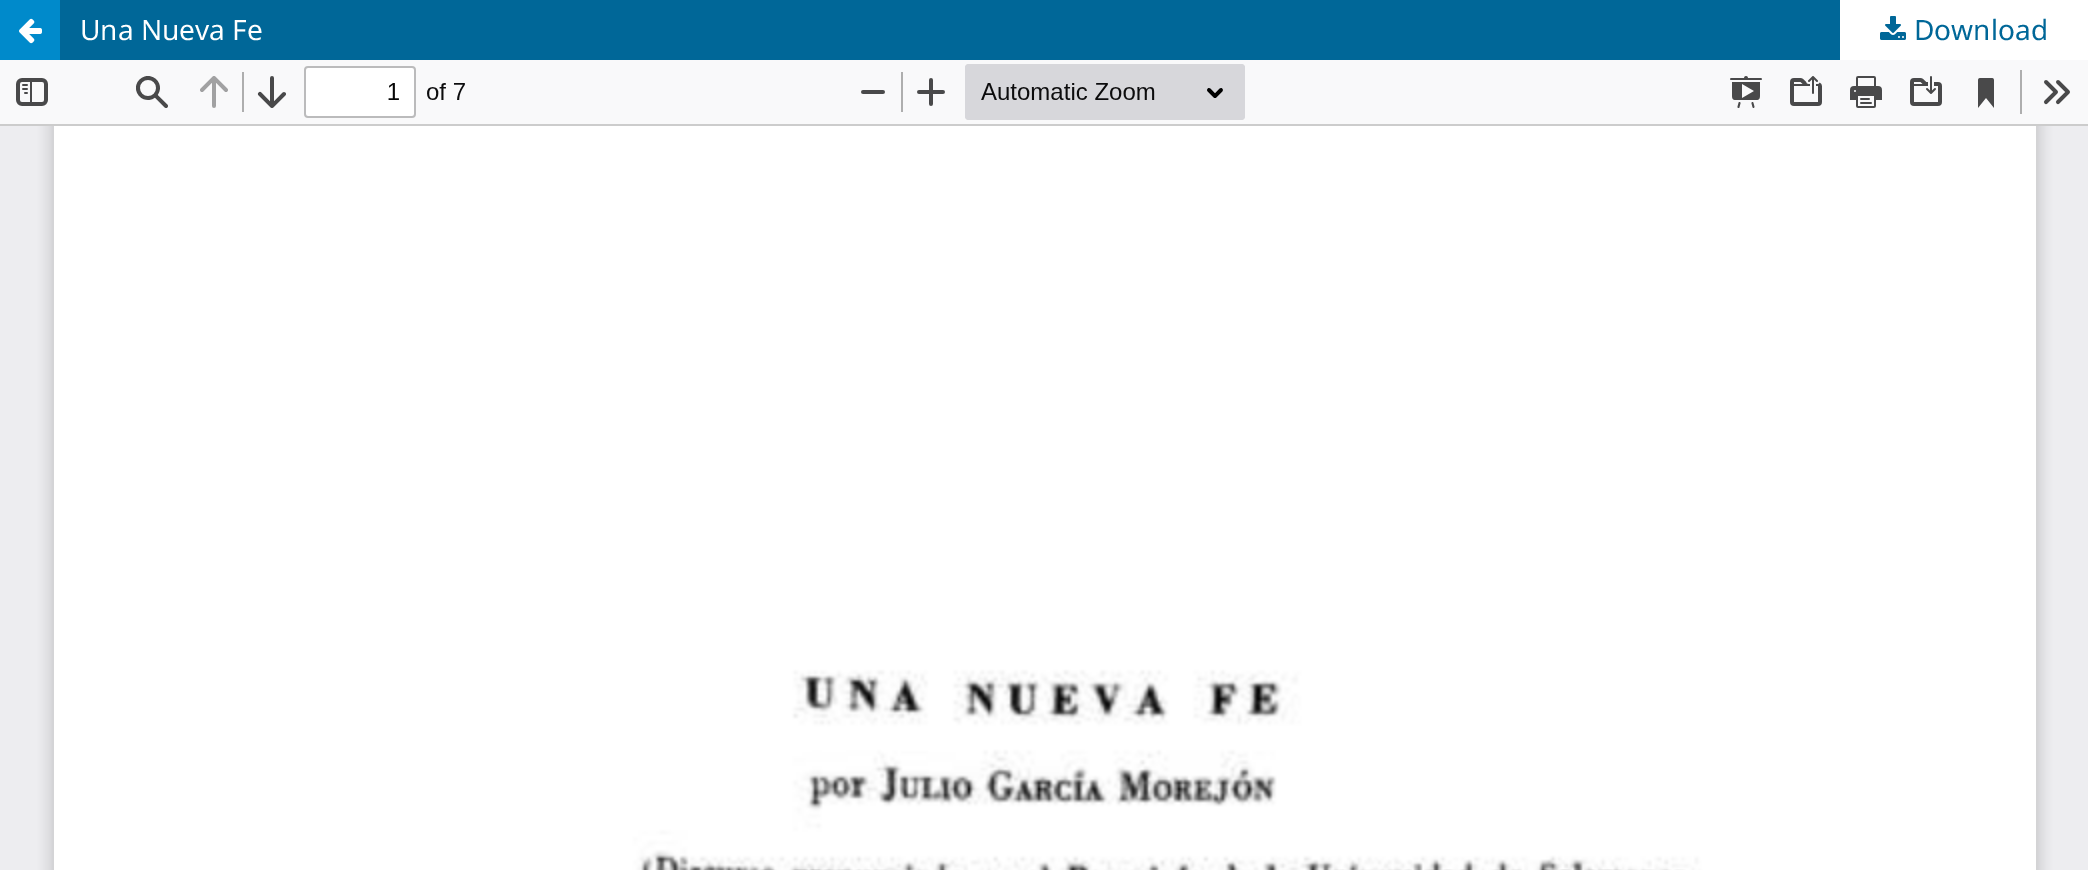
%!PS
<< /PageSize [2088 870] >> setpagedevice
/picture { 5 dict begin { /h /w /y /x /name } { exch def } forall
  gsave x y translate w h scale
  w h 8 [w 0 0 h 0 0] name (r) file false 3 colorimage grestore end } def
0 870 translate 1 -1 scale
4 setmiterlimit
1 setgray
0 0 2088 870 rectfill
0 0.404 0.596 setrgbcolor
60 0 1780 60 rectfill
0 0.541 0.796 setrgbcolor
0 0 60 60 rectfill
(img1.rgb) 19 18 23 26 picture
/NotoSans-Regular [28 0 0 -28 0 0] selectfont
1 setgray
80 40 moveto (Una Nueva Fe) show
(img2.rgb) 1880 16 26 24 picture
0 0.404 0.596 setrgbcolor
1914 40 moveto (Download) show
(img3.rgb) 0 60 2088 810 picture
showpage
